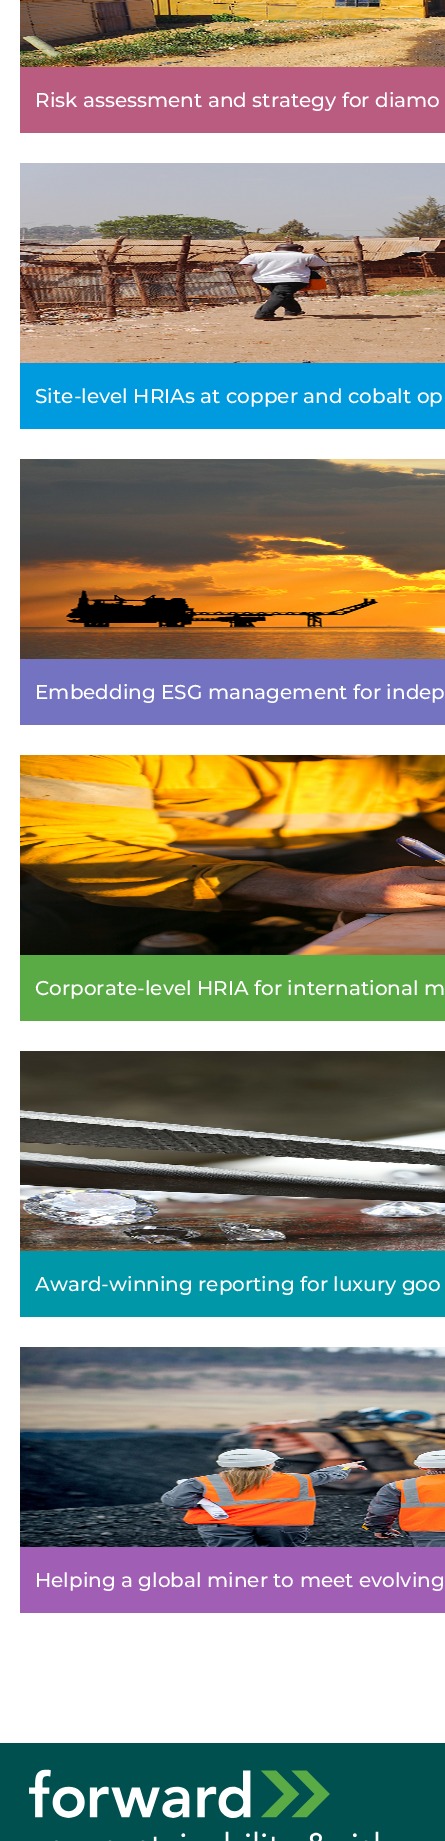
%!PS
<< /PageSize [445 1841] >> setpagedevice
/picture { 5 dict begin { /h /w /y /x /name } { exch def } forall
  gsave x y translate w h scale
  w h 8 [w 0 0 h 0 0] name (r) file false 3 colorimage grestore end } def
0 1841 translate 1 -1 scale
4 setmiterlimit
1 setgray
0 0 445 1841 rectfill
0.729 0.357 0.502 setrgbcolor
20 67 425 66 rectfill
(img1.rgb) 20 0 425 67 picture
/Montserrat-Medium [20 0 0 -20 0 0] selectfont
1 setgray
35 107 moveto (Risk assessment and strategy for diamo) show
0 0.604 0.871 setrgbcolor
20 363 425 66 rectfill
(img2.rgb) 20 163 425 200 picture
1 setgray
35 403 moveto (Site-level HRIAs at copper and cobalt op) show
0.455 0.451 0.757 setrgbcolor
20 659 425 66 rectfill
(img3.rgb) 20 459 425 200 picture
1 setgray
35 699 moveto (Embedding ESG management for indep) show
0.353 0.667 0.275 setrgbcolor
20 955 425 66 rectfill
(img4.rgb) 20 755 425 200 picture
1 setgray
35 995 moveto (Corporate-level HRIA for international m) show
0 0.596 0.659 setrgbcolor
20 1251 425 66 rectfill
(img5.rgb) 20 1051 425 200 picture
1 setgray
35 1291 moveto (Award-winning reporting for luxury goo) show
0.631 0.369 0.71 setrgbcolor
20 1547 425 66 rectfill
(img6.rgb) 20 1347 425 200 picture
1 setgray
35 1587 moveto (Helping a global miner to meet evolving) show
0 0.314 0.314 setrgbcolor
0 1743 445 98 rectfill
(img7.rgb) 29 1769 350 72 picture
showpage
